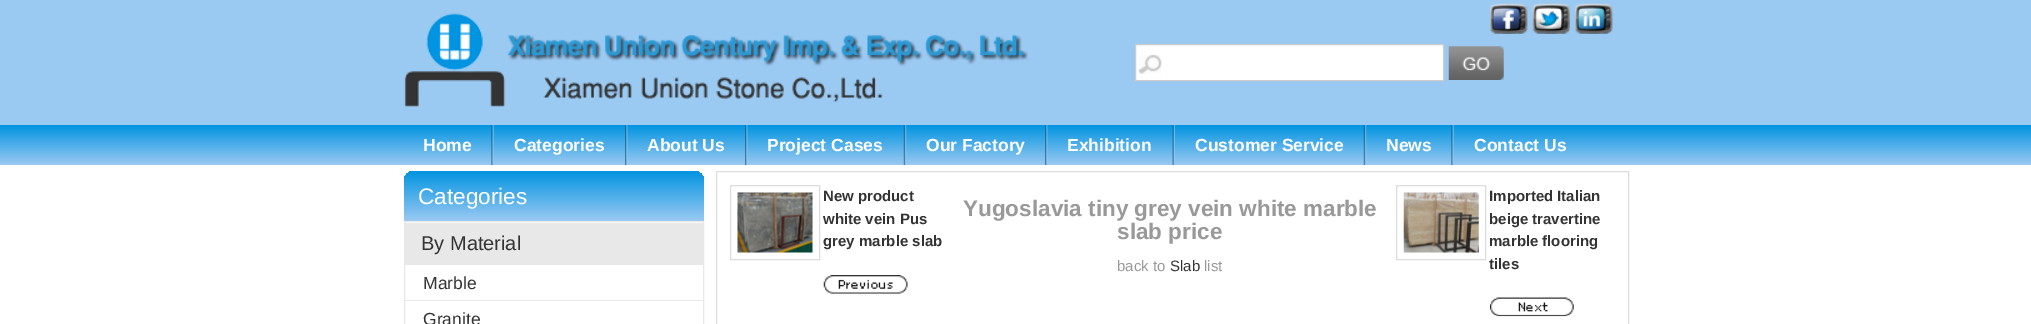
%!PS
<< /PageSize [2031 324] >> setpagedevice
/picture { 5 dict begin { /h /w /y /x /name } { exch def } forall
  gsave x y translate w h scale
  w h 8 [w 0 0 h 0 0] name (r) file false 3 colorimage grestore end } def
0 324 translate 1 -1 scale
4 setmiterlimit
1 setgray
0 0 2031 324 rectfill
0.604 0.788 0.949 setrgbcolor
0 0 2031 125 rectfill
(img1.rgb) 404 13 624 94 picture
(img2.rgb) 1490 3 38 31 picture
(img3.rgb) 1532 3 38 31 picture
(img4.rgb) 1575 3 38 31 picture
1 setgray
1136 45 307 35 rectfill
(img5.rgb) 1138 55 24 19 picture
0.8 setgray
1135.5 44.5 308 36 rectstroke
(img6.rgb) 1448 46 56 34 picture
gsave newpath 0 125 moveto 2031 125 lineto 2031 165 lineto 0 165 lineto closepath clip newpath
<< /ShadingType 2 /ColorSpace /DeviceRGB /Coords [1016 125 1016 165] /Extend [true true] /Function << /FunctionType 2 /Domain [0 1] /C0 [0.008 0.58 0.882] /C1 [0.604 0.788 0.949] /N 1 >> >> shfill grestore
/LiberationSans-Bold [17.5 0 0 -17.5 0 0] selectfont
1 setgray
423 151 moveto (Home) show
(img7.rgb) 491 125 3 40 picture
514 151 moveto (Categories) show
(img8.rgb) 625 125 3 40 picture
647 151 moveto (About Us) show
(img8.rgb) 745 125 3 40 picture
767 151 moveto (Project Cases) show
(img9.rgb) 903 125 4 40 picture
926 151 moveto (Our Factory) show
(img8.rgb) 1045 125 3 40 picture
1067 151 moveto (Exhibition) show
(img10.rgb) 1172 125 3 40 picture
1195 151 moveto (Customer Service) show
(img9.rgb) 1363 125 4 40 picture
1386 151 moveto (News) show
(img7.rgb) 1451 125 3 40 picture
1474 151 moveto (Contact Us) show
gsave newpath 414 171 moveto 694 171 lineto 699.5 171 704 175.5 704 181 curveto 704 221 lineto 404 221 lineto 404 181 lineto 404 175.5 408.5 171 414 171 curveto closepath clip newpath
<< /ShadingType 2 /ColorSpace /DeviceRGB /Coords [554 171 554 221] /Extend [true true] /Function << /FunctionType 2 /Domain [0 1] /C0 [0.008 0.58 0.882] /C1 [0.604 0.788 0.949] /N 1 >> >> shfill grestore
/LiberationSans-Regular [22.5 0 0 -22.5 0 0] selectfont
418 204 moveto (Categories) show
0.91 setgray
404.5 221.5 299 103 rectstroke
405 223 298 42 rectfill
/LiberationSans-Regular [20 0 0 -20 0 0] selectfont
0.2 setgray
421 250 moveto (By Material) show
0.91 setgray
405 300 298 1 rectfill
/LiberationSans-Regular [17.5 0 0 -17.5 0 0] selectfont
0.2 setgray
423 289 moveto (Marble) show
423 325 moveto (Granite) show
0.867 setgray
716.5 171.5 912 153 rectstroke
730.5 185.5 89 74 rectstroke
(img11.rgb) 737 192 76 61 picture
/LiberationSans-Bold [15 0 0 -15 0 0] selectfont
0.2 setgray
823 201 moveto (New product) show
823 224 moveto (white vein Pus) show
823 246 moveto (grey marble slab) show
(img12.rgb) 823 275 85 19 picture
/LiberationSans-Bold [22.5 0 0 -22.5 0 0] selectfont
0.6 setgray
963 216 moveto (Yugoslavia tiny grey vein white marble) show
1117 239 moveto (slab price) show
/LiberationSans-Regular [15 0 0 -15 0 0] selectfont
1117 271 moveto (back to) show
0.2 setgray
1170 271 moveto (Slab) show
0.6 setgray
1204 271 moveto (list) show
0.867 setgray
1396.5 185.5 89 74 rectstroke
(img13.rgb) 1403 192 76 61 picture
/LiberationSans-Bold [15 0 0 -15 0 0] selectfont
0.2 setgray
1489 201 moveto (Imported Italian) show
1489 224 moveto (beige travertine) show
1489 246 moveto (marble flooring) show
1489 269 moveto (tiles) show
(img14.rgb) 1490 297 84 20 picture
showpage
